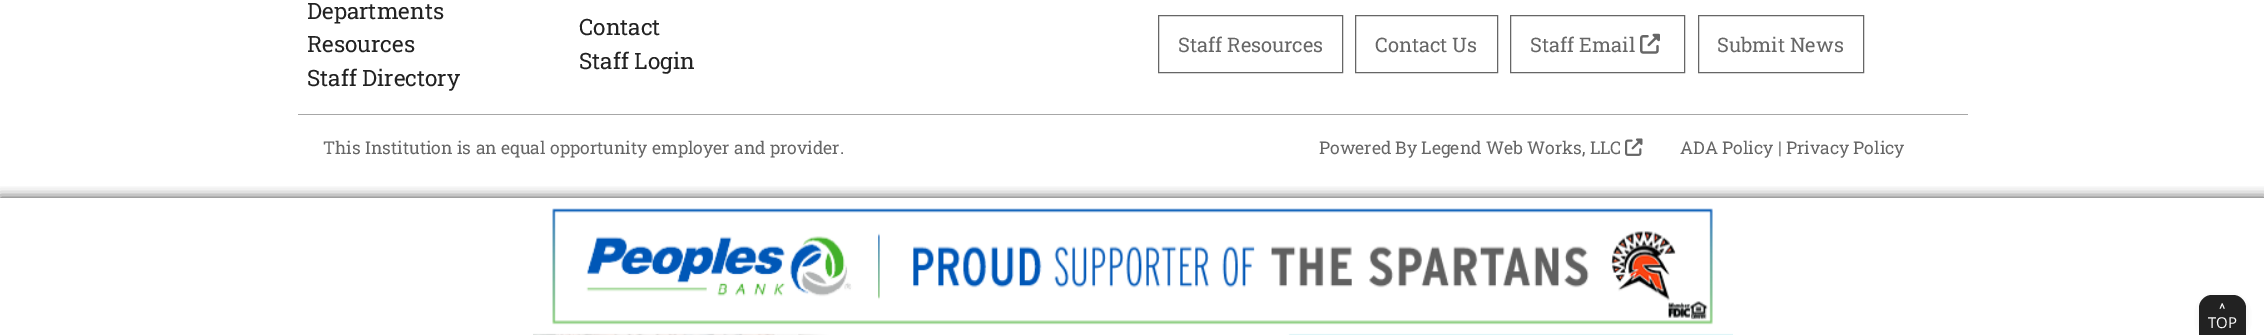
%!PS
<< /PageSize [2264 335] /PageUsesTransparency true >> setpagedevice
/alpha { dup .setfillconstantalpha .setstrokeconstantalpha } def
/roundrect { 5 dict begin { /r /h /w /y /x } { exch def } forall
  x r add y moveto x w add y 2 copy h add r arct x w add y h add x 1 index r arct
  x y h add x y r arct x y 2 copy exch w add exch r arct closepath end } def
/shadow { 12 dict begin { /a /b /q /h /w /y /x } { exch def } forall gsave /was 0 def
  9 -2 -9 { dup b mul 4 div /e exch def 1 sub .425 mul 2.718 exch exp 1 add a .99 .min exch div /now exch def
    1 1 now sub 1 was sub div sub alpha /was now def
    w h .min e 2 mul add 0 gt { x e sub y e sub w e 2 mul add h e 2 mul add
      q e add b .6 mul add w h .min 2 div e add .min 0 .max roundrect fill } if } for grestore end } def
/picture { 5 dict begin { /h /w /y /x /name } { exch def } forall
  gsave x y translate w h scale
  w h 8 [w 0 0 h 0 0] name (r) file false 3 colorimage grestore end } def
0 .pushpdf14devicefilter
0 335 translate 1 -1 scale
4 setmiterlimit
1 setgray
0 0 2264 335 rectfill
/RobotoSlab-Regular [22.5 0 0 -22.5 0 0] selectfont
0.133 setgray
307 19 moveto (Departments) show
307 52 moveto (Resources) show
307 86 moveto (Staff Directory) show
579 35 moveto (Contact) show
579 69 moveto (Staff Login) show
0.4 setgray
1158.5 15.5 184 57 rectstroke
/RobotoSlab-Regular [20 0 0 -20 0 0] selectfont
1178 52 moveto (Staff Resources) show
1355.5 15.5 142 57 rectstroke
1375 52 moveto (Contact Us) show
1510.5 15.5 174 57 rectstroke
1530 52 moveto (Staff Email) show
(img1.rgb) 1640 33 20 21 picture
1698.5 15.5 165 57 rectstroke
1717 52 moveto (Submit News) show
0.655 setgray
298 114 1670 1 rectfill
/RobotoSlab-Regular [17.5 0 0 -17.5 0 0] selectfont
0.4 setgray
323 154 moveto (This Institution is an equal opportunity employer and provider.) show
1319 154 moveto (Powered By Legend Web Works, LLC) show
(img2.rgb) 1625 138 18 18 picture
1680 154 moveto (ADA Policy | Privacy Policy) show
gsave
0 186 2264 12 rectclip
0 setgray
0 198 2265 137 0 6 0.75 shadow
grestore
(img4.rgb) 533 333 1200 2 picture
(img3.rgb) 533 198 1200 137 picture
0.129 setgray
2208 306 30 23 4 6 0.5 shadow
0.133 setgray
newpath 2212 295 moveto 2233 295 lineto 2240 295 2246 301 2246 308 curveto 2246 335 lineto 2199 335 lineto 2199 308 lineto 2199 301 2205 295 2212 295 curveto closepath fill
/RobotoSlab-Regular [15 0 0 -15 0 0] selectfont
1 setgray
2219 314 moveto (^) show
/OpenSans-Regular [15 0 0 -15 0 0] selectfont
2208 328 moveto (TOP) show
.poppdf14devicefilter showpage
